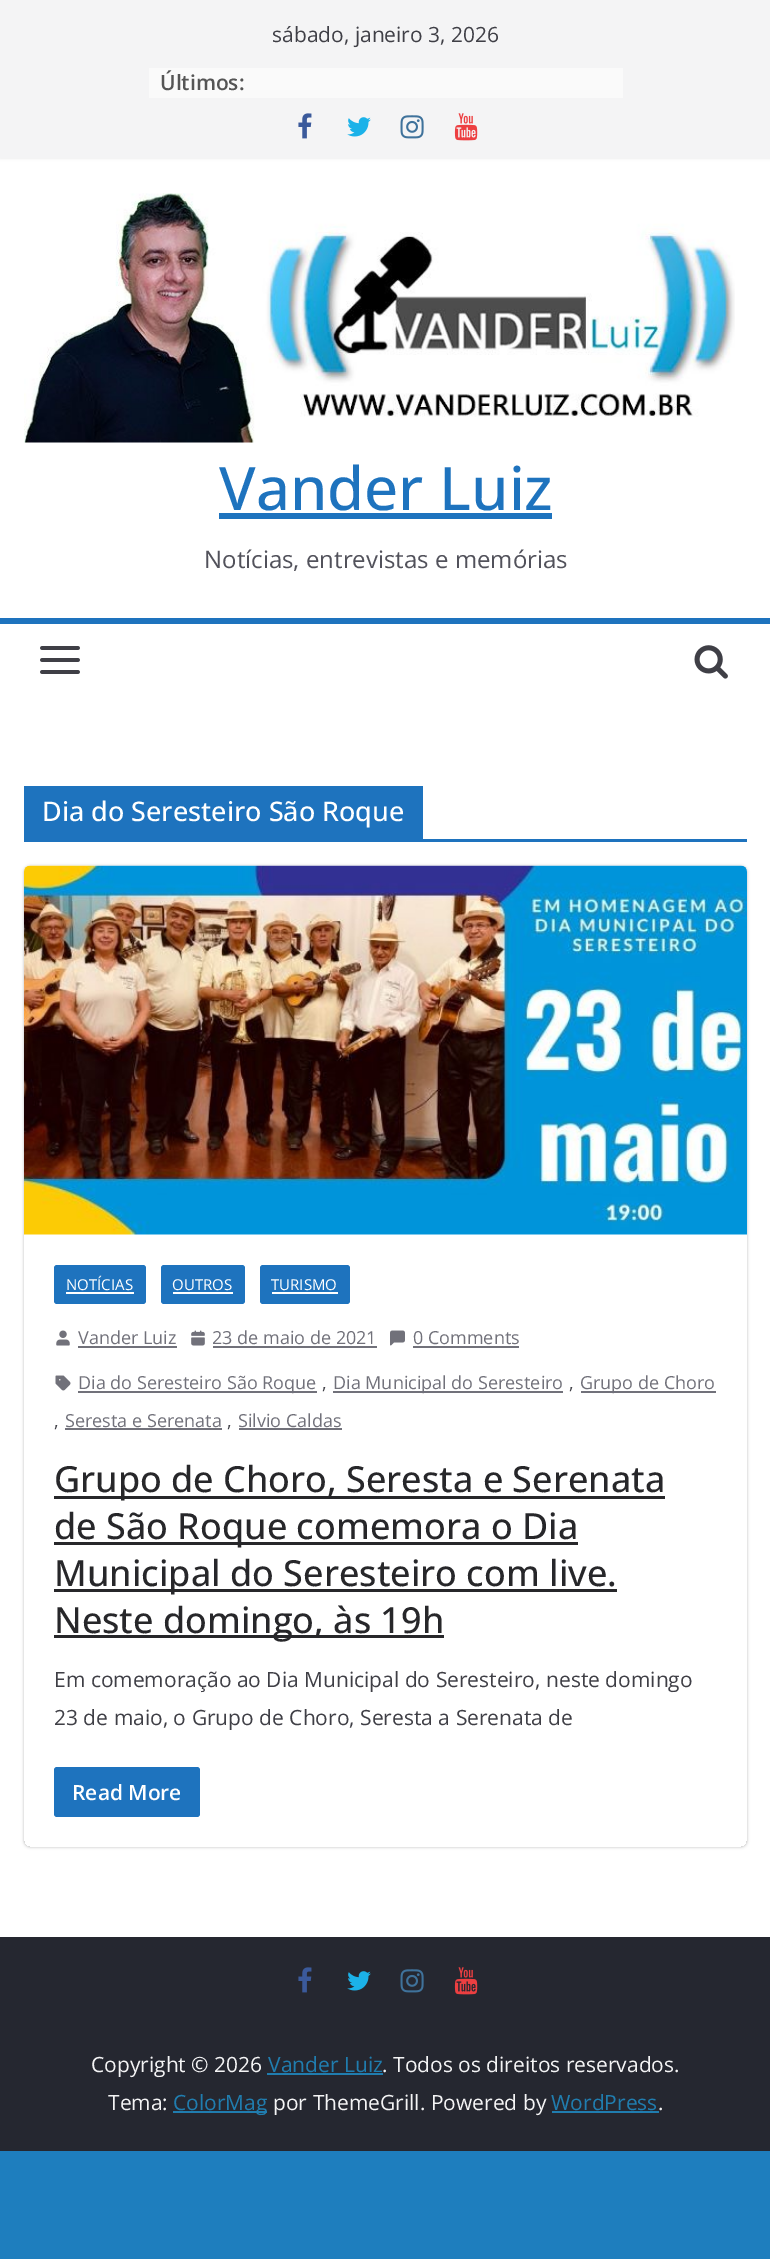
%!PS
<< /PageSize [770 2259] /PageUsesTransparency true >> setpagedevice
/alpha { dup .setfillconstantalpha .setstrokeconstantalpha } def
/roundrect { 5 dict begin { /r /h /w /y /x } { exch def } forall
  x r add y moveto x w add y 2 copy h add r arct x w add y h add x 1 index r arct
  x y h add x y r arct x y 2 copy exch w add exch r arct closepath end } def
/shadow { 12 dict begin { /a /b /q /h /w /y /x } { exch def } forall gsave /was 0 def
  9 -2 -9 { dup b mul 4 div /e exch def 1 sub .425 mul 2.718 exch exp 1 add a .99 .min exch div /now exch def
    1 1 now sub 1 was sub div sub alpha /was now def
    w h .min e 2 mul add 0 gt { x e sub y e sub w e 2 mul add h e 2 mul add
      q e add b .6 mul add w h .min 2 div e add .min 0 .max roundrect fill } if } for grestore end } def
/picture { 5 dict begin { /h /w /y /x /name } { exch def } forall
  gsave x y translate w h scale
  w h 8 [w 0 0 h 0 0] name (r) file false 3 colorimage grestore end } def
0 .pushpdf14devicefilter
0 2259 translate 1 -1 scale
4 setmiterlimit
0.118 0.494 0.745 setrgbcolor
0 0 770 2259 rectfill
1 setgray
0 158 770 1779 rectfill
0 setgray
0 0 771 158 0 1.5 0.1 shadow
0.957 0.957 0.961 setrgbcolor
0 0 770 158 rectfill
/OpenSans-Regular [21 0 0 -21 0 0] selectfont
0.247 0.247 0.275 setrgbcolor
272 42 moveto (sábado, janeiro 3, 2026) show
0.98 setgray
149 68 474 30 rectfill
/OpenSans-SemiBold [21 0 0 -21 0 0] selectfont
0.333 setgray
160 90 moveto (Últimos:) show
(img1.rgb) 298 113 14 26 picture
(img2.rgb) 347 117 24 20 picture
(img3.rgb) 400 115 24 24 picture
(img4.rgb) 454 113 24 28 picture
(img5.rgb) 24 193 711 250 picture
/OpenSans-Medium [60 0 0 -60 0 0] selectfont
0.118 0.451 0.745 setrgbcolor
219 510 moveto (Vander Luiz) show
219 513 333 6 rectfill
/OpenSans-Regular [24 0 0 -24 0 0] selectfont
0.322 0.322 0.357 setrgbcolor
204 568 moveto (Notícias, entrevistas e memórias) show
0.118 0.451 0.745 setrgbcolor
0 618 770 6 rectfill
(img6.rgb) 40 646 40 28 picture
(img7.rgb) 694 645 34 34 picture
24 839 723 3 rectfill
24 786 399 53 rectfill
/OpenSans-Medium [27 0 0 -27 0 0] selectfont
1 setgray
42 821 moveto (Dia do Seresteiro São Roque) show
gsave
newpath 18 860 moveto 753 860 lineto 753 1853 lineto 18 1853 lineto closepath 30 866 moveto 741 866 lineto 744.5 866 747 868.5 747 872 curveto 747 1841 lineto 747 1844.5 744.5 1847 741 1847 curveto 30 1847 lineto 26.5 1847 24 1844.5 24 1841 curveto 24 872 lineto 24 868.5 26.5 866 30 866 curveto closepath eoclip newpath
0 setgray
24 866 723 981 6 1.5 0.24 shadow
grestore
(img8.rgb) 24 865 723 370 picture
0.118 0.451 0.745 setrgbcolor
54 1265 92 39 3 roundrect fill
/OpenSans-Regular [15 0 0 -15 0 0] selectfont
1 setgray
66 1290 moveto (NOTÍCIAS) show
66 1292 68 2 rectfill
0.118 0.451 0.745 setrgbcolor
161 1265 84 39 3 roundrect fill
1 setgray
172 1290 moveto (OUTROS) show
173 1292 60 2 rectfill
0.118 0.451 0.745 setrgbcolor
260 1265 90 39 3 roundrect fill
1 setgray
271 1290 moveto (TURISMO) show
272 1292 66 2 rectfill
(img9.rgb) 56 1330 14 16 picture
/OpenSans-Regular [18 0 0 -18 0 0] selectfont
0.443 0.443 0.478 setrgbcolor
78 1344 moveto (Vander Luiz) show
78 1346 99 2 rectfill
(img10.rgb) 191 1330 14 16 picture
212 1344 moveto (23 de maio de 2021) show
213 1346 164 2 rectfill
(img11.rgb) 390 1330 15 16 picture
413 1344 moveto (0 Comments) show
413 1346 106 2 rectfill
(img12.rgb) 55 1375 16 16 picture
78 1391 239 2 rectfill
78 1389 moveto (Dia do Seresteiro São Roque) show
0.247 0.247 0.275 setrgbcolor
322 1389 moveto (,) show
0.443 0.443 0.478 setrgbcolor
333 1391 230 2 rectfill
333 1389 moveto (Dia Municipal do Seresteiro) show
0.247 0.247 0.275 setrgbcolor
569 1389 moveto (,) show
0.443 0.443 0.478 setrgbcolor
581 1391 135 2 rectfill
580 1389 moveto (Grupo de Choro) show
0.247 0.247 0.275 setrgbcolor
54 1427 moveto (,) show
0.443 0.443 0.478 setrgbcolor
65 1427 moveto (Seresta e Serenata) show
65 1428 157 2 rectfill
0.247 0.247 0.275 setrgbcolor
227 1427 moveto (,) show
0.443 0.443 0.478 setrgbcolor
238 1427 moveto (Silvio Caldas) show
239 1428 103 2 rectfill
0.153 0.153 0.165 setrgbcolor
54 1496 611 3 rectfill
/OpenSans-Medium [36 0 0 -36 0 0] selectfont
54 1492 moveto (Grupo de Choro, Seresta e Serenata) show
54 1542 524 3 rectfill
54 1539 moveto (de São Roque comemora o Dia) show
54 1589 563 3 rectfill
54 1586 moveto (Municipal do Seresteiro com live.) show
54 1635 390 3 rectfill
54 1633 moveto (Neste domingo, às 19h) show
/OpenSans-Regular [21 0 0 -21 0 0] selectfont
0.247 0.247 0.275 setrgbcolor
54 1687 moveto (Em comemoração ao Dia Municipal do Seresteiro, neste domingo) show
54 1725 moveto (23 de maio, o Grupo de Choro, Seresta a Serenata de) show
0.118 0.451 0.745 setrgbcolor
54 1767 146 50 3 roundrect fill
/OpenSans-SemiBold [21 0 0 -21 0 0] selectfont
1 setgray
72 1800 moveto (Read More) show
0.145 0.153 0.188 setrgbcolor
0 1937 770 214 rectfill
(img13.rgb) 298 1967 14 26 picture
(img14.rgb) 347 1971 24 20 picture
(img15.rgb) 400 1969 24 24 picture
(img16.rgb) 454 1967 24 28 picture
/OpenSans-Regular [21 0 0 -21 0 0] selectfont
0.957 0.957 0.961 setrgbcolor
91 2072 moveto (Copyright © 2026) show
0.125 0.49 0.686 setrgbcolor
268 2072 moveto (Vander Luiz) show
267 2073 116 2 rectfill
0.957 0.957 0.961 setrgbcolor
382 2072 moveto (. Todos os direitos reservados.) show
108 2110 moveto (Tema:) show
0.125 0.49 0.686 setrgbcolor
173 2111 94 2 rectfill
173 2110 moveto (ColorMag) show
0.957 0.957 0.961 setrgbcolor
273 2110 moveto (por ThemeGrill. Powered by) show
0.125 0.49 0.686 setrgbcolor
551 2110 moveto (WordPress) show
552 2111 107 2 rectfill
0.957 0.957 0.961 setrgbcolor
658 2110 moveto (.) show
.poppdf14devicefilter showpage
